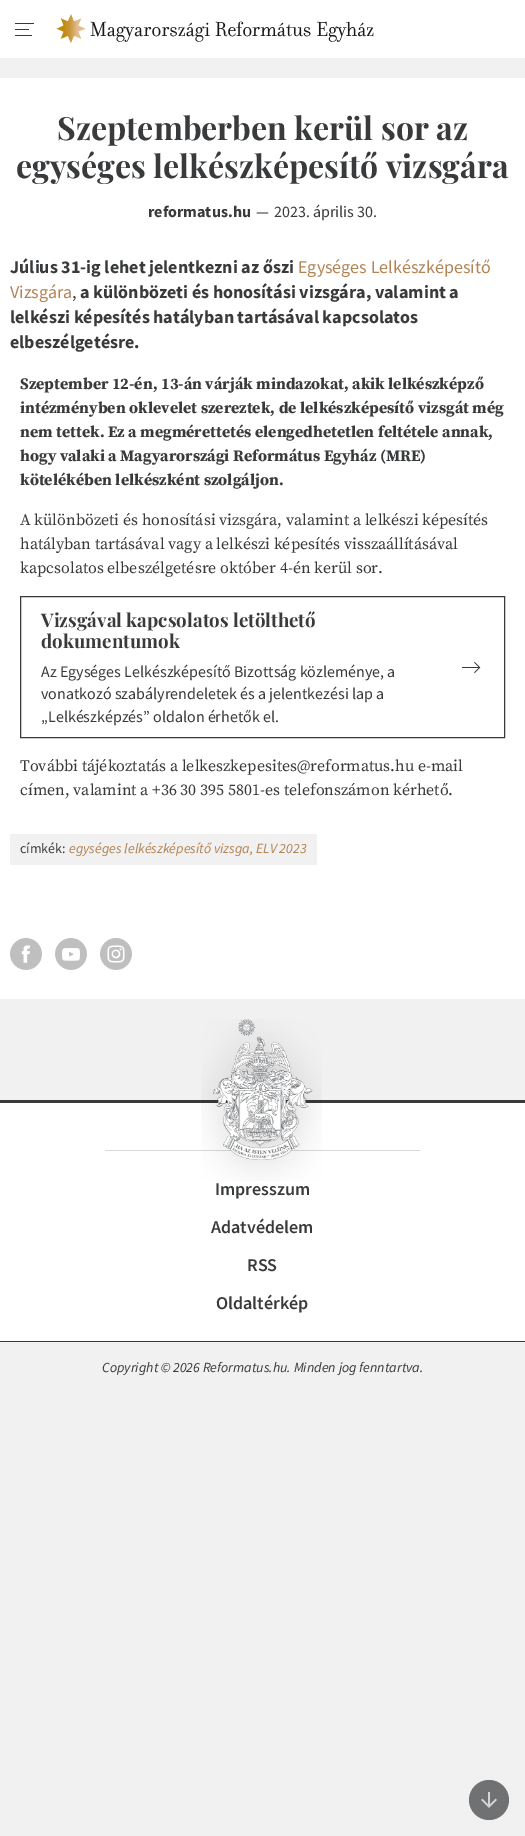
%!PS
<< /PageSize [525 1836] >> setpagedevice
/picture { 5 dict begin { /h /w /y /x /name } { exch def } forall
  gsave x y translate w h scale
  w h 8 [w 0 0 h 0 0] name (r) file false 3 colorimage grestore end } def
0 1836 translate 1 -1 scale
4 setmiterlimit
0.945 setgray
0 0 525 1836 rectfill
1 setgray
0 0 525 58 rectfill
(img1.rgb) 56 14 318 29 picture
0.22 0.227 0.231 setrgbcolor
15 23 19 1 rectfill
15 29 14 1 rectfill
15 35 17 1 rectfill
1 setgray
0 78 525 921 rectfill
/PlayfairDisplay-Bold [32 0 0 -32 0 0] selectfont
0.22 0.227 0.231 setrgbcolor
57 140 moveto (Szeptemberben kerül sor az) show
16 178 moveto (egységes lelkészképesítő vizsgára) show
/SourceSansPro-Bold [16 0 0 -16 0 0] selectfont
148 217 moveto (reformatus.hu) show
/SourceSansPro-Regular [16 0 0 -16 0 0] selectfont
256 217 moveto (—) show
274 217 moveto (2023. április 30.) show
/SourceSansPro-Bold [18 0 0 -18 0 0] selectfont
10 273 moveto (Július 31-ig lehet jelentkezni az őszi) show
/SourceSansPro-Regular [18 0 0 -18 0 0] selectfont
0.698 0.514 0.325 setrgbcolor
298 273 moveto (Egységes Lelkészképesítő) show
10 298 moveto (Vizsgára) show
0.22 0.227 0.231 setrgbcolor
72 298 moveto (,) show
/SourceSansPro-Bold [18 0 0 -18 0 0] selectfont
80 298 moveto (a különbözeti és honosítási vizsgára, valamint a) show
10 323 moveto (lelkészi képesítés hatályban tartásával kapcsolatos) show
10 348 moveto (elbeszélgetésre.) show
/SourceSerifPro-Bold [16 0 0 -16 0 0] selectfont
20 389 moveto (Szeptember 12-én, 13-án várják mindazokat, akik lelkészképző) show
20 413 moveto (intézményben oklevelet szereztek, de lelkészképesítő vizsgát még) show
20 437 moveto (nem tettek. Ez a megmérettetés elengedhetetlen feltétele annak,) show
20 461 moveto (hogy valaki a Magyarországi Református Egyház \(MRE\)) show
20 485 moveto (kötelékében lelkészként szolgáljon.) show
/SourceSerifPro-Regular [16 0 0 -16 0 0] selectfont
20 525 moveto (A különbözeti és honosítási vizsgára, valamint a lelkészi képesítés) show
20 549 moveto (hatályban tartásával vagy a lelkészi képesítés visszaállításával) show
20 573 moveto (kapcsolatos elbeszélgetésre október 4-én kerül sor.) show
20.5 596.5 484 141 rectstroke
/PlayfairDisplay-Bold [18.75 0 0 -18.75 0 0] selectfont
41 627 moveto (Vizsgával kapcsolatos letölthető) show
41 648 moveto (dokumentumok) show
/SourceSansPro-Regular [16 0 0 -16 0 0] selectfont
41 677 moveto (Az Egységes Lelkészképesítő Bizottság közleménye, a) show
41 699 moveto (vonatkozó szabályrendeletek és a jelentkezési lap a) show
41 722 moveto („Lelkészképzés” oldalon érhetők el.) show
(img2.rgb) 462 661 19 13 picture
/SourceSerifPro-Regular [16 0 0 -16 0 0] selectfont
20 771 moveto (További tájékoztatás a lelkeszkepesites@reformatus.hu e-mail) show
20 795 moveto (címen, valamint a +36 30 395 5801-es telefonszámon kérhető.) show
0.945 setgray
10 834 307 31 rectfill
/SourceSansPro-Regular [14 0 0 -14 0 0] selectfont
0.22 0.227 0.231 setrgbcolor
20 853 moveto (címkék:) show
/SourceSansPro-Italic [14 0 0 -14 0 0] selectfont
0.698 0.514 0.325 setrgbcolor
69 853 moveto (egységes lelkészképesítő vizsga) show
250 853 moveto (, ELV 2023) show
(img3.rgb) 10 938 32 32 picture
(img4.rgb) 55 938 32 32 picture
(img5.rgb) 100 938 32 32 picture
1 setgray
0 1103 525 238 rectfill
0.22 0.227 0.231 setrgbcolor
0 1100 525 3 rectfill
0.843 0.847 0.847 setrgbcolor
105 1150 315 1 rectfill
(img6.rgb) 201 1019 121 162 picture
/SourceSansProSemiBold-SemiBold [18 0 0 -18 0 0] selectfont
0.22 0.227 0.231 setrgbcolor
215 1195 moveto (Impresszum) show
211 1233 moveto (Adatvédelem) show
247 1271 moveto (RSS) show
216 1309 moveto (Oldaltérkép) show
0 1341 525 1 rectfill
/SourceSansPro-Italic [14 0 0 -14 0 0] selectfont
102 1372 moveto (Copyright © 2026 Reformatus.hu. Minden jog fenntartva.) show
0.439 0.443 0.447 setrgbcolor
newpath 489 1800 20 0 360 arc closepath fill
(img7.rgb) 481 1792 16 16 picture
showpage
